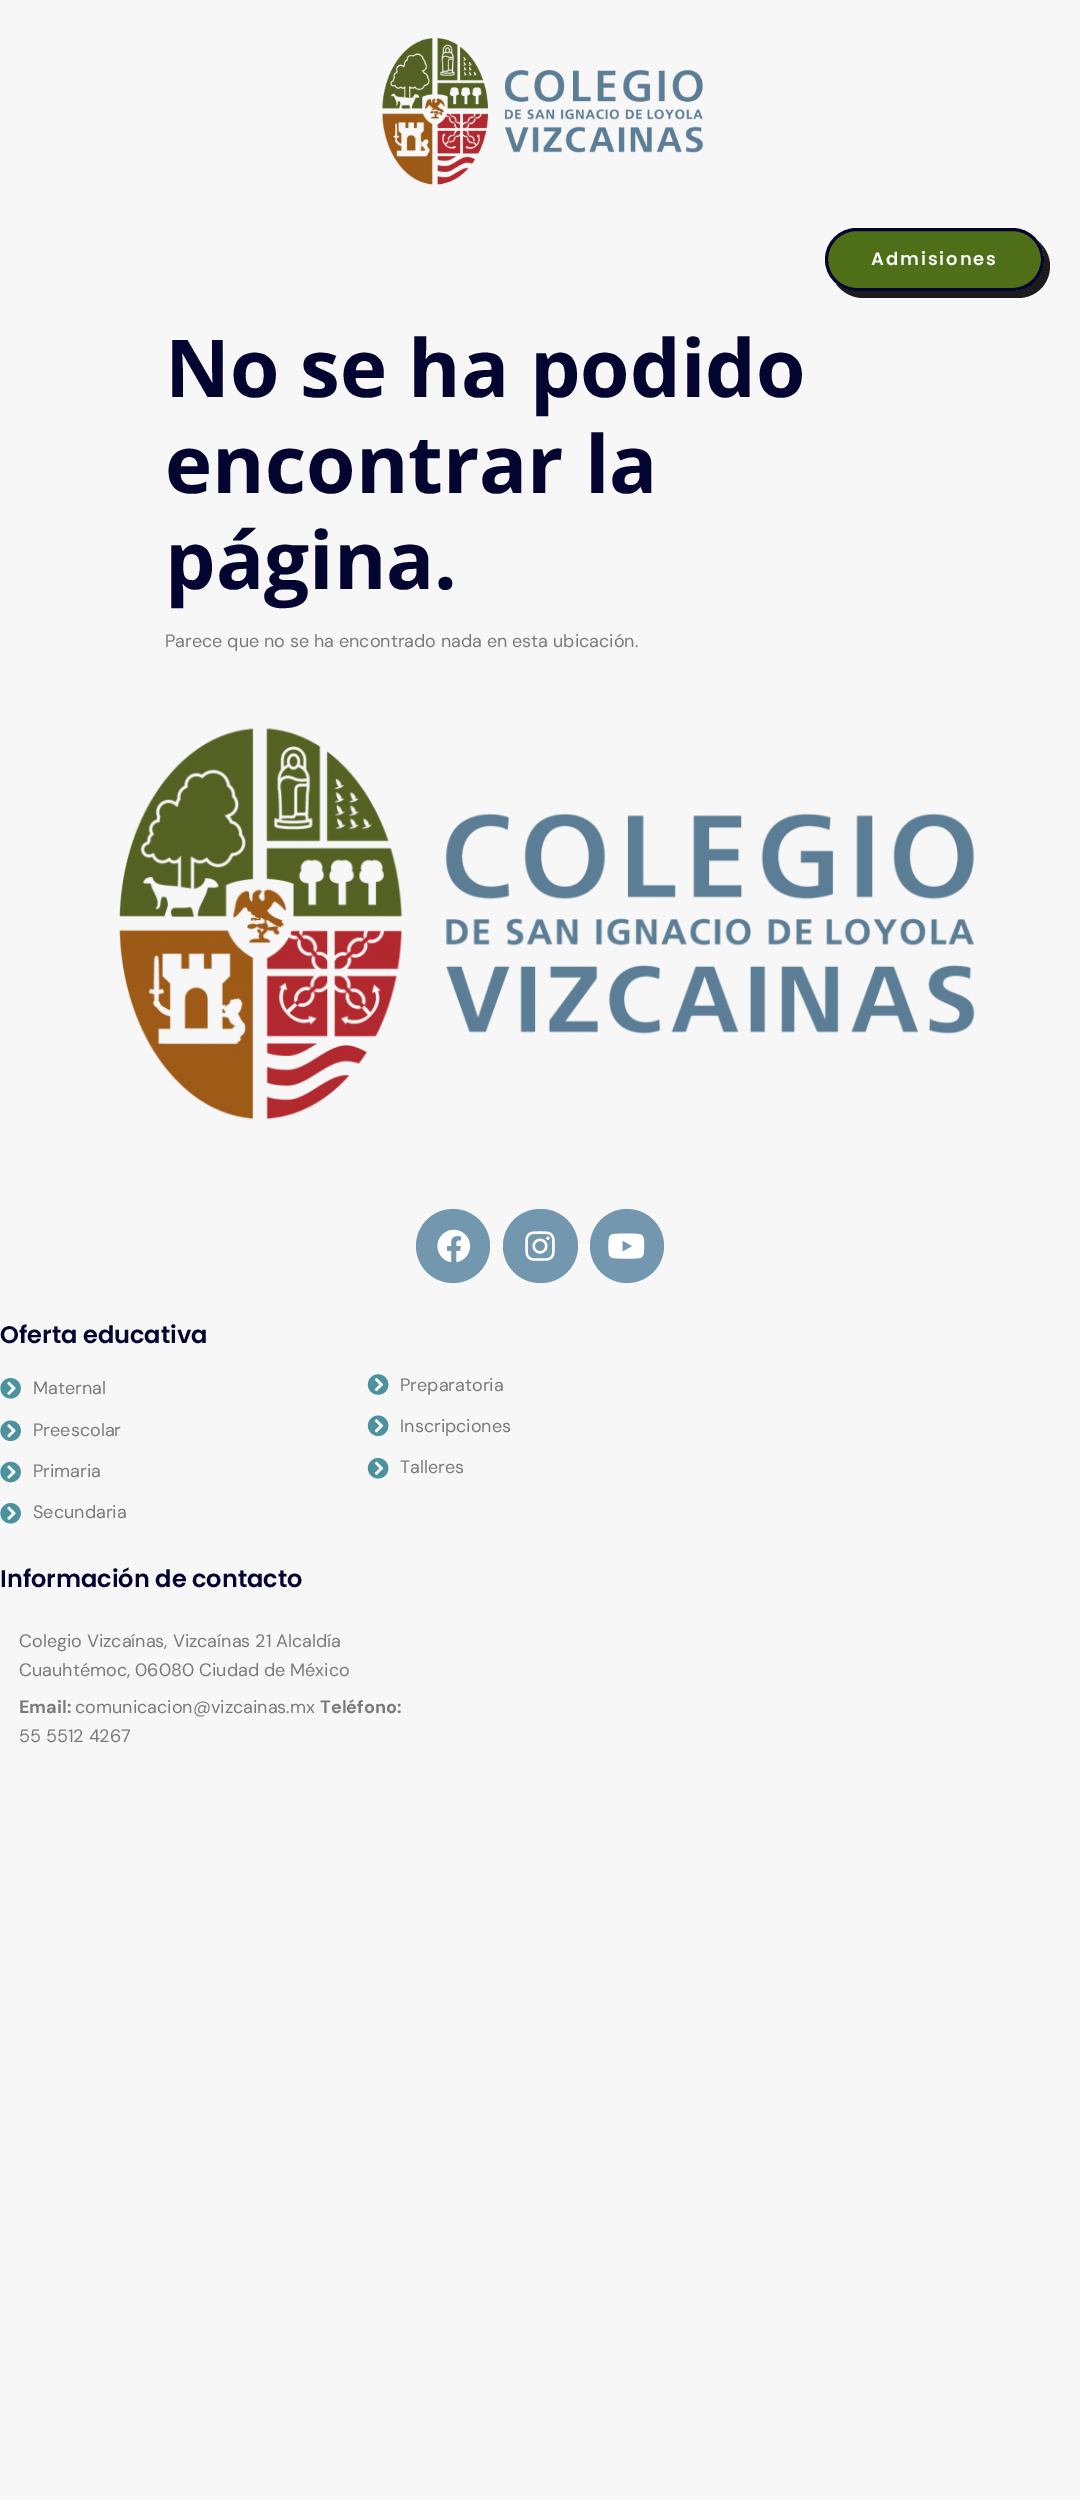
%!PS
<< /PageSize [1080 2500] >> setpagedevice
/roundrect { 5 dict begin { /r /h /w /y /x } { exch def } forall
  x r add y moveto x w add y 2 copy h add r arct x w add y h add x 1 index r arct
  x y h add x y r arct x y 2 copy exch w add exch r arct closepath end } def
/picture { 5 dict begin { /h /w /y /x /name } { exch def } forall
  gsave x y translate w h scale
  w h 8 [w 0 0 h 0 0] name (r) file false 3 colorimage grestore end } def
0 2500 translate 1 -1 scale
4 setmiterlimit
0.969 setgray
0 0 1080 2500 rectfill
(img1.rgb) 382 38 322 147 picture
0.11 setgray
newpath 836 284 moveto 842 292 852 298 863 298 curveto 1018 298 lineto 1036 298 1050 284 1050 266 curveto 1050 256 1045 247 1038 241 curveto 1042 246 1044 252 1044 259 curveto 1044 277 1029 291 1012 291 curveto 857 291 lineto 849 291 842 288 836 284 curveto closepath fill
0.31 0.431 0.094 setrgbcolor
826.5 229.5 216 60 30 roundrect gsave fill grestore
0.016 0.016 0.188 setrgbcolor
3 setlinewidth
stroke
/Poppins-SemiBold [18 0 0 -18 0 0] selectfont
0.969 setgray
871 265 moveto 1.9 0 (Admisiones) ashow
/OpenSans-Bold [80 0 0 -80 0 0] selectfont
0.016 0.016 0.188 setrgbcolor
165 397 moveto (No se ha podido) show
165 493 moveto (encontrar la) show
165 589 moveto (página.) show
/DMSans-Regular [18 0 0 -18 0 0] selectfont
0.478 setgray
165 647 moveto (Parece que no se ha encontrado nada en esta ubicación.) show
(img2.rgb) 119 728 856 392 picture
0.451 0.592 0.682 setrgbcolor
newpath 453 1246 37 0 360 arc closepath fill
(img3.rgb) 437 1229 34 34 picture
503 1209 75 74 37 roundrect fill
(img4.rgb) 525 1231 30 30 picture
newpath 627 1246 37 0 360 arc closepath fill
(img5.rgb) 608 1233 37 26 picture
/Poppins-SemiBold [24 0 0 -24 0 0] selectfont
0.016 0.016 0.188 setrgbcolor
0 1343 moveto (Oferta educativa) show
(img6.rgb) 0 1378 21 21 picture
/DMSans-Regular [18 0 0 -18 0 0] selectfont
0.478 setgray
33 1394 moveto (Maternal) show
(img7.rgb) 0 1420 21 22 picture
33 1436 moveto (Preescolar) show
(img8.rgb) 0 1461 21 22 picture
33 1477 moveto (Primaria) show
(img6.rgb) 0 1503 21 21 picture
33 1518 moveto (Secundaria) show
(img9.rgb) 367 1374 22 21 picture
400 1391 moveto (Preparatoria) show
(img10.rgb) 367 1415 22 22 picture
400 1432 moveto (Inscripciones) show
(img11.rgb) 367 1458 22 21 picture
400 1473 moveto (Talleres) show
/Poppins-SemiBold [24 0 0 -24 0 0] selectfont
0.016 0.016 0.188 setrgbcolor
0 1587 moveto (Información de contacto) show
/DMSans-Regular [18 0 0 -18 0 0] selectfont
0.478 setgray
19 1647 moveto (Colegio Vizcaínas, Vizcaínas 21 Alcaldía) show
19 1676 moveto (Cuauhtémoc, 06080 Ciudad de México) show
/DMSans-Bold [18 0 0 -18 0 0] selectfont
19 1713 moveto (Email:) show
/DMSans-Regular [18 0 0 -18 0 0] selectfont
75 1713 moveto (comunicacion@vizcainas.mx) show
/DMSans-Bold [18 0 0 -18 0 0] selectfont
320 1713 moveto (Teléfono:) show
/DMSans-Regular [18 0 0 -18 0 0] selectfont
19 1742 moveto (55 5512 4267) show
showpage
